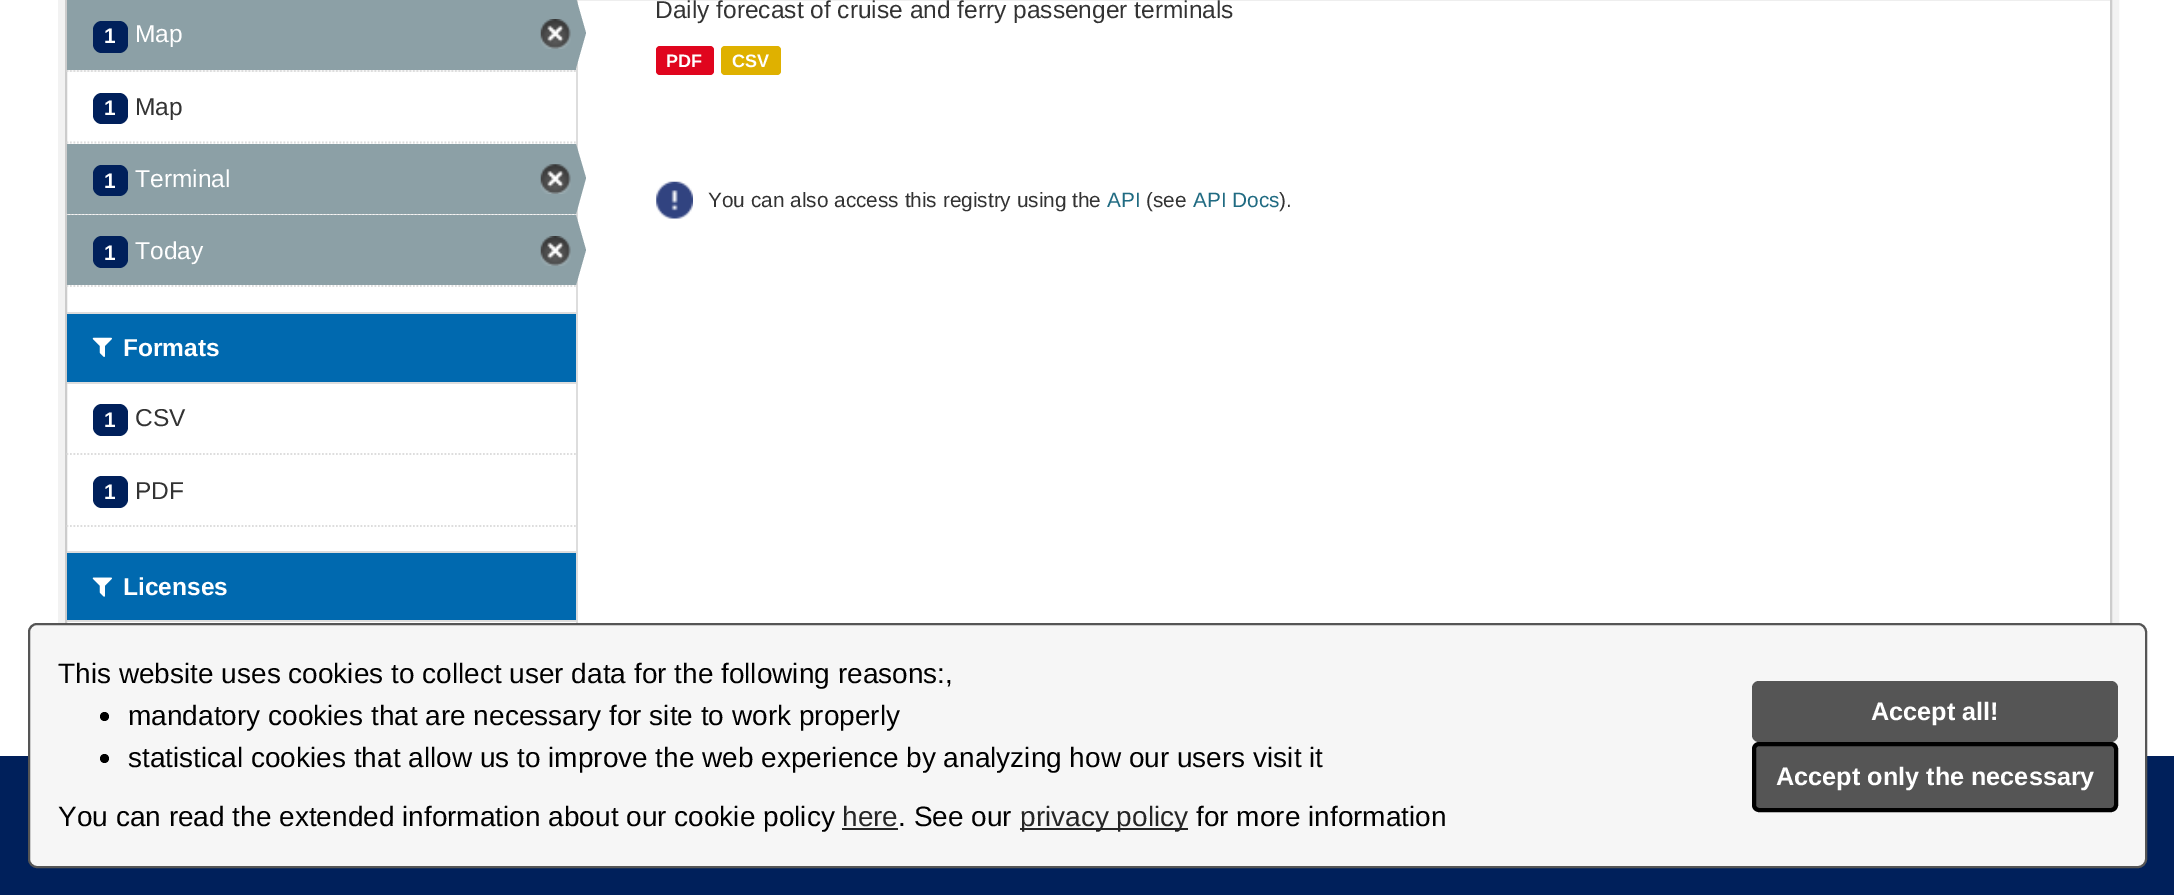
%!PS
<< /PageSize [2174 895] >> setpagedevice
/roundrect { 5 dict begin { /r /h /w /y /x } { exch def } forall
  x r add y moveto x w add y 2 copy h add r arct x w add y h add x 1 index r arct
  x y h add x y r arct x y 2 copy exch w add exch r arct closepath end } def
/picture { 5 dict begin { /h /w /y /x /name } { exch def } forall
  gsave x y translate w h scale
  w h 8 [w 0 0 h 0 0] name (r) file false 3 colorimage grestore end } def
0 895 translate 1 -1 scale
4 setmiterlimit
1 setgray
0 0 2174 895 rectfill
0.949 setgray
7 setlinewidth
61.5 -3.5 2054 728 rectstroke
0.8 setgray
2 setlinewidth
66 -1 2045 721 rectstroke
0.965 setgray
67 70 509 2 rectfill
0.867 setgray
1.8 setlinewidth
[1.75 1.75] 0 setdash
newpath 66.5 71 moveto 576 71 lineto stroke
0.549 0.627 0.651 setrgbcolor
67 0 509 70 rectfill
0 0.125 0.357 setrgbcolor
93 21 35 32 9 roundrect fill
/LiberationSans-Bold [21 0 0 -21 0 0] selectfont
1 setgray
104 43 moveto (1) show
/LiberationSans-Regular [24.5 0 0 -24.5 0 0] selectfont
135 42 moveto (Map) show
(img1.rgb) 540 19 31 30 picture
0.867 setgray
576 0 2 623 rectfill
0.549 0.627 0.651 setrgbcolor
newpath 576 68 moveto 576 -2 lineto 586 33 lineto closepath fill
0.867 setgray
newpath 66.5 142.5 moveto 576 142.5 lineto stroke
0 0.125 0.357 setrgbcolor
93 93 35 31 9 roundrect fill
/LiberationSans-Bold [21 0 0 -21 0 0] selectfont
1 setgray
104 115 moveto (1) show
/LiberationSans-Regular [24.5 0 0 -24.5 0 0] selectfont
0.2 setgray
135 115 moveto (Map) show
0.965 setgray
68 214 508 1 rectfill
0.867 setgray
newpath 66.5 214.5 moveto 576 214.5 lineto stroke
0.549 0.627 0.651 setrgbcolor
67 144 509 70 rectfill
0 0.125 0.357 setrgbcolor
93 165 35 31 9 roundrect fill
/LiberationSans-Bold [21 0 0 -21 0 0] selectfont
1 setgray
104 188 moveto (1) show
/LiberationSans-Regular [24.5 0 0 -24.5 0 0] selectfont
135 187 moveto (Terminal) show
(img2.rgb) 540 164 31 30 picture
0.549 0.627 0.651 setrgbcolor
newpath 576 214 moveto 576 144 lineto 586 178 lineto closepath fill
67 215 509 70 rectfill
0 0.125 0.357 setrgbcolor
93 236 35 32 9 roundrect fill
/LiberationSans-Bold [21 0 0 -21 0 0] selectfont
1 setgray
104 260 moveto (1) show
/LiberationSans-Regular [24.5 0 0 -24.5 0 0] selectfont
135 259 moveto (Today) show
(img1.rgb) 540 236 31 30 picture
0.549 0.627 0.651 setrgbcolor
newpath 576 285 moveto 576 215 lineto 586 250 lineto closepath fill
0.867 setgray
newpath 66.5 286 moveto 576 286 lineto stroke
0 0.412 0.686 setrgbcolor
67 314 509 68 rectfill
0.867 setgray
67 312 509 2 rectfill
67 382 509 2 rectfill
(img3.rgb) 92 337 20 20 picture
/LiberationSans-Bold [24.5 0 0 -24.5 0 0] selectfont
1 setgray
123 356 moveto (Formats) show
0.867 setgray
newpath 66.5 454 moveto 576 454 lineto stroke
0 0.125 0.357 setrgbcolor
93 404 35 32 9 roundrect fill
/LiberationSans-Bold [21 0 0 -21 0 0] selectfont
1 setgray
104 427 moveto (1) show
/LiberationSans-Regular [24.5 0 0 -24.5 0 0] selectfont
0.2 setgray
135 426 moveto (CSV) show
0 0.125 0.357 setrgbcolor
93 476 35 32 9 roundrect fill
/LiberationSans-Bold [21 0 0 -21 0 0] selectfont
1 setgray
104 499 moveto (1) show
/LiberationSans-Regular [24.5 0 0 -24.5 0 0] selectfont
0.2 setgray
135 499 moveto (PDF) show
0.867 setgray
newpath 66.5 526 moveto 576 526 lineto stroke
0 0.412 0.686 setrgbcolor
67 553 509 67 rectfill
0.867 setgray
67 551 509 2 rectfill
67 620 509 2 rectfill
(img4.rgb) 92 577 20 20 picture
/LiberationSans-Bold [24.5 0 0 -24.5 0 0] selectfont
1 setgray
123 595 moveto (Licenses) show
/LiberationSans-Regular [24.5 0 0 -24.5 0 0] selectfont
0.2 setgray
655 18 moveto (Daily forecast of cruise and ferry passenger terminals) show
0.878 0.02 0.118 setrgbcolor
656 46 58 29 4 roundrect fill
/LiberationSans-Bold [18 0 0 -18 0 0] selectfont
1 setgray
666 67 moveto (PDF) show
0.875 0.694 0 setrgbcolor
721 46 60 29 4 roundrect fill
1 setgray
732 67 moveto (CSV) show
(img5.rgb) 656 181 37 38 picture
/LiberationSans-Regular [20.8 0 0 -20.8 0 0] selectfont
0.2 setgray
708 207 moveto (You can also access this registry using the) show
0.125 0.42 0.51 setrgbcolor
1107 207 moveto (API) show
0.2 setgray
1146 207 moveto (\(see) show
0.125 0.42 0.51 setrgbcolor
1193 207 moveto (API Docs) show
0.2 setgray
1279 207 moveto (\).) show
0 0.125 0.357 setrgbcolor
0 756 2174 139 rectfill
0.965 setgray
29 624 2117 243 8 roundrect gsave fill grestore
0.333 setgray
2 setlinewidth
[] 0 setdash
stroke
/LiberationSans-Regular [28 0 0 -28 0 0] selectfont
0 setgray
58 683 moveto (This website uses cookies to collect user data for the following reasons:,) show
newpath 104.5 716.5 4.5 0 360 arc closepath fill
128 725 moveto (mandatory cookies that are necessary for site to work properly) show
newpath 104.5 758.5 4.5 0 360 arc closepath fill
128 767 moveto (statistical cookies that allow us to improve the web experience by analyzing how our users visit it) show
58 826 moveto (You can read the extended information about our cookie policy) show
0.145 setgray
842 826 moveto (here) show
842 828 56 2 rectfill
0 setgray
898 826 moveto (. See our) show
0.145 setgray
1020 828 168 2 rectfill
1020 826 moveto (privacy policy) show
0 setgray
1196 826 moveto (for more information) show
0.333 setgray
1752 681 366 61 7 roundrect fill
/LiberationSans-Bold [25.25 0 0 -25.25 0 0] selectfont
1 setgray
1871 720 moveto (Accept all!) show
0.333 setgray
1754 744 362 66 5 roundrect gsave fill grestore
0 setgray
4 setlinewidth
stroke
1 setgray
1776 785 moveto (Accept only the necessary) show
showpage
